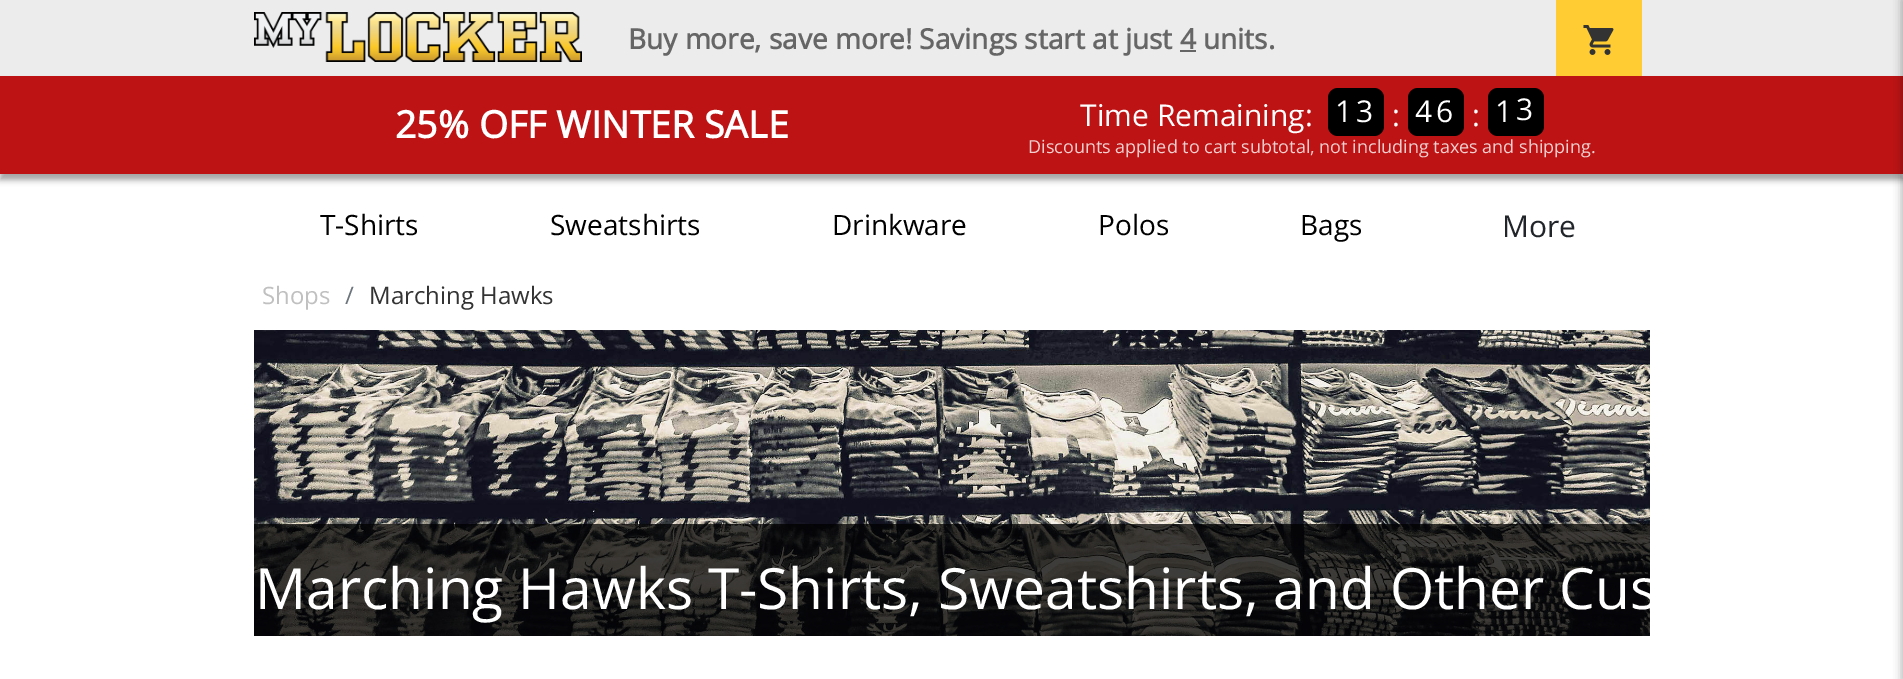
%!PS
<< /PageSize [1903 679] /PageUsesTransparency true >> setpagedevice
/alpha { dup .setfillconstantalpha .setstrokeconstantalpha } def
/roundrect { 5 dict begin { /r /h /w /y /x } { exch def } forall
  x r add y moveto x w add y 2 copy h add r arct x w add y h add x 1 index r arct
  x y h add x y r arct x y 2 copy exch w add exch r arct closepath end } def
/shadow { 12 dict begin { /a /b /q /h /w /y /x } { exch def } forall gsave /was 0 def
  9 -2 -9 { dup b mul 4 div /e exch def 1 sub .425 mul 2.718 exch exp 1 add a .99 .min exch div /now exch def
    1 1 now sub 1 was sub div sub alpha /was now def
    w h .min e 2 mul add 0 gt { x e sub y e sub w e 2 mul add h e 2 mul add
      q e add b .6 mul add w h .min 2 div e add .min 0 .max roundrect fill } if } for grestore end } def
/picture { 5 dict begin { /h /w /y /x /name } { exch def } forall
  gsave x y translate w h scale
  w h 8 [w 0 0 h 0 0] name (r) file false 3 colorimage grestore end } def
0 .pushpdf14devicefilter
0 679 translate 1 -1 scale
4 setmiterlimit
1 setgray
0 0 1903 679 rectfill
0.925 setgray
0 0 1903 76 rectfill
(img1.rgb) 254 12 328 50 picture
/OpenSans-Bold [28 0 0 -28 0 0] selectfont
0.4 setgray
628 49 moveto (Buy more, save more! Savings start at just 4 units.) show
1180 50 16 2 rectfill
0 setgray
0 82 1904 98 0 3 0.35 shadow
1 0.8 0.2 setrgbcolor
1556 0 86 76 rectfill
(img2.rgb) 1583 25 31 30 picture
0.741 0.075 0.078 setrgbcolor
0 76 1903 98 rectfill
/OpenSans-Bold [37.5 0 0 -37.5 0 0] selectfont
1 setgray
395 138 moveto (25% OFF WINTER SALE) show
/OpenSans-Regular [30 0 0 -30 0 0] selectfont
1080 126 moveto (Time Remaining:) show
0 setgray
1328 88 56 48 10 roundrect fill
1 setgray
1335 122 moveto 10 0 (1) ashow
1356 122 moveto 10 0 (3) ashow
1392 126 moveto (:) show
0 setgray
1408 88 56 48 10 roundrect fill
1 setgray
1415 122 moveto 10 0 (4) ashow
1436 122 moveto 10 0 (6) ashow
1472 126 moveto (:) show
0 setgray
1488 88 56 48 10 roundrect fill
1 setgray
1495 122 moveto 10 0 (1) ashow
1516 120 moveto 10 0 (3) ashow
/OpenSans-Regular [18 0 0 -18 0 0] selectfont
0.949 0.816 0.816 setrgbcolor
1028 153 moveto (Discounts applied to cart subtotal, not including taxes and shipping.) show
0 setgray
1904 0 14 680 0 5 0.5 shadow
/OpenSans-Regular [28 0 0 -28 0 0] selectfont
320 235 moveto (T-Shirts) show
550 235 moveto (Sweatshirts) show
832 235 moveto (Drinkware) show
1098 235 moveto (Polos) show
1300 235 moveto (Bags) show
/OpenSans-Regular [30 0 0 -30 0 0] selectfont
0.129 0.145 0.161 setrgbcolor
1502 237 moveto (More) show
/OpenSans-Regular [24 0 0 -24 0 0] selectfont
0.753 setgray
262 304 moveto (Shops) show
0.424 0.459 0.49 setrgbcolor
345 304 moveto (/) show
0.2 setgray
369 304 moveto (Marching Hawks) show
(img3.rgb) 254 330 1396 306 picture
0.75 alpha
0 setgray
254 524 1396 112 rectfill
gsave
254 330 1396 306 rectclip
/OpenSans-Regular [56.9 0 0 -56.9 0 0] selectfont
1 alpha
1 setgray
255 609 moveto (Marching Hawks T-Shirts, Sweatshirts, and Other Cus) show
grestore
.poppdf14devicefilter showpage
